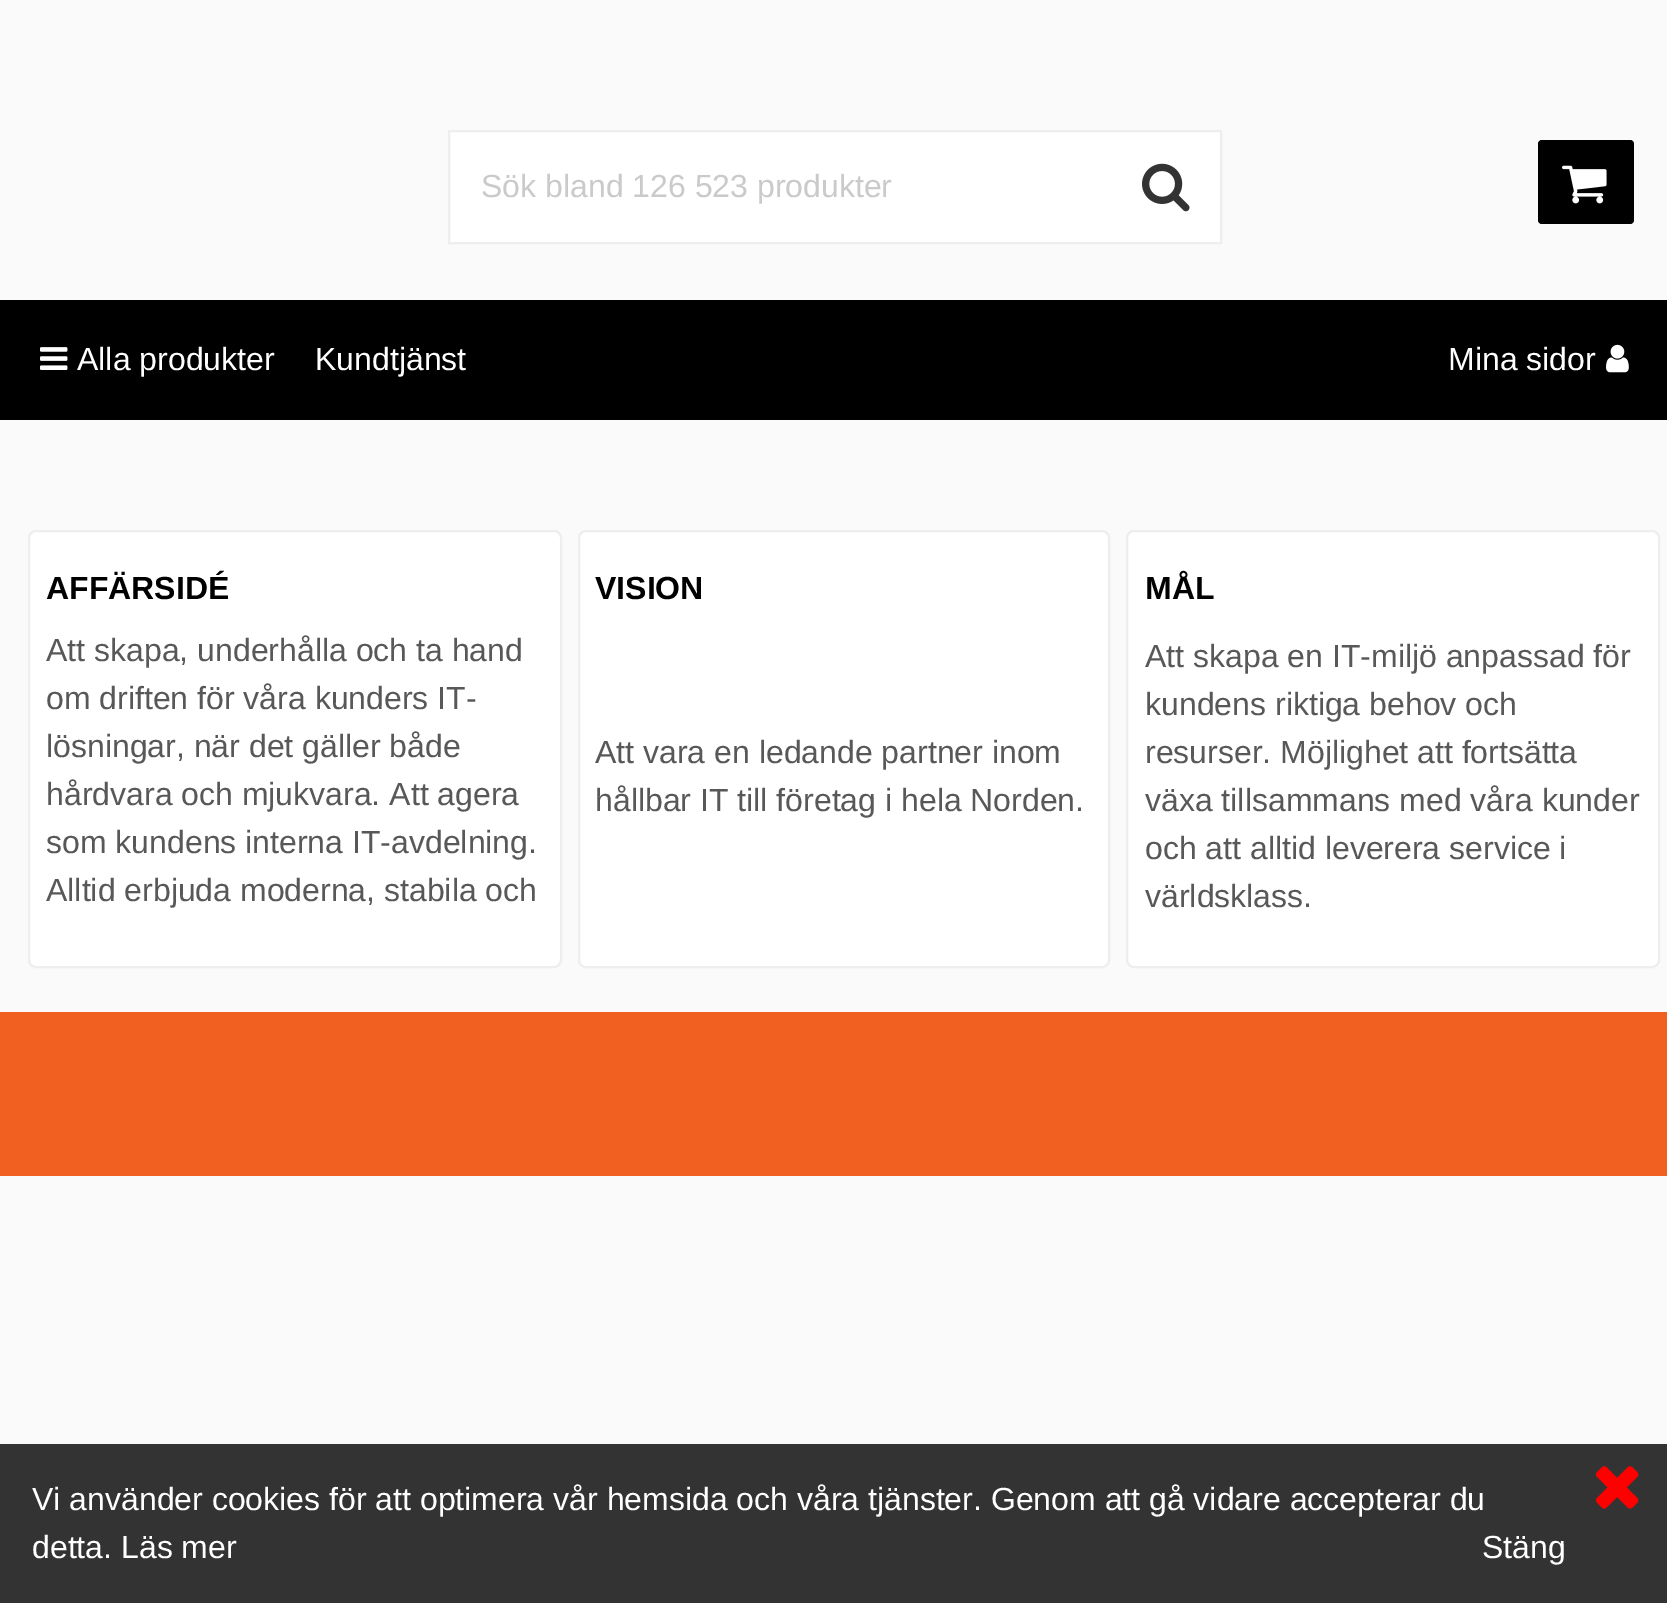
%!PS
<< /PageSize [1667 1603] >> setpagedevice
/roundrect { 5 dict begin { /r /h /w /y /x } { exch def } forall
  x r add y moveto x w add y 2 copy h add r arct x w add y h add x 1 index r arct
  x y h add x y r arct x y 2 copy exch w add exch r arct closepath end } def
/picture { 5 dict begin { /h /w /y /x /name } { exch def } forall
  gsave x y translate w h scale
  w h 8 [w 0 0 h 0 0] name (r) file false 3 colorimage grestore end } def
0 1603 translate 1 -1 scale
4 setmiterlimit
0.98 setgray
0 0 1667 1603 rectfill
1 setgray
newpath 449 131 moveto 1221 131 lineto 1221 243 lineto 449 243 lineto closepath gsave fill grestore
0.933 setgray
2 setlinewidth
stroke
/LiberationSans-Regular [32 0 0 -32 0 0] selectfont
0.792 setgray
481 197 moveto (Sök bland 126 523 produkter) show
(img1.rgb) 1142 163 48 49 picture
0 setgray
1538 140 96 84 4 roundrect fill
(img2.rgb) 1562 165 45 39 picture
0 300 1667 120 rectfill
(img3.rgb) 40 347 28 23 picture
1 setgray
77 370 moveto (Alla produkter) show
315 370 moveto (Kundtjänst) show
1448 370 moveto (Mina sidor) show
(img4.rgb) 1606 344 23 29 picture
29 531 532 436 7 roundrect gsave fill grestore
0.933 setgray
stroke
/LiberationSans-Bold [32 0 0 -32 0 0] selectfont
0 setgray
46 599 moveto (AFFÄRSIDÉ) show
/LiberationSans-Regular [32 0 0 -32 0 0] selectfont
0.345 setgray
46 661 moveto (Att skapa, underhålla och ta hand) show
46 709 moveto (om driften för våra kunders IT-) show
46 757 moveto (lösningar, när det gäller både) show
46 805 moveto (hårdvara och mjukvara. Att agera) show
46 853 moveto (som kundens interna IT-avdelning.) show
46 901 moveto (Alltid erbjuda moderna, stabila och) show
1 setgray
579 531 530 436 7 roundrect gsave fill grestore
0.933 setgray
stroke
/LiberationSans-Bold [32 0 0 -32 0 0] selectfont
0 setgray
595 599 moveto (VISION) show
/LiberationSans-Regular [32 0 0 -32 0 0] selectfont
0.345 setgray
595 763 moveto (Att vara en ledande partner inom) show
595 811 moveto (hållbar IT till företag i hela Norden.) show
1 setgray
1127 531 532 436 7 roundrect gsave fill grestore
0.933 setgray
stroke
/LiberationSans-Bold [32 0 0 -32 0 0] selectfont
0 setgray
1145 599 moveto (MÅL) show
/LiberationSans-Regular [32 0 0 -32 0 0] selectfont
0.345 setgray
1145 667 moveto (Att skapa en IT-miljö anpassad för) show
1145 715 moveto (kundens riktiga behov och) show
1145 763 moveto (resurser. Möjlighet att fortsätta) show
1145 811 moveto (växa tillsammans med våra kunder) show
1145 859 moveto (och att alltid leverera service i) show
1145 907 moveto (världsklass.) show
0.945 0.376 0.129 setrgbcolor
0 1012 1667 164 rectfill
0.2 setgray
0 1444 1667 159 rectfill
1 setgray
32 1510 moveto (Vi använder cookies för att optimera vår hemsida och våra tjänster. Genom att gå vidare accepterar du) show
(img5.rgb) 1595 1466 44 43 picture
32 1558 moveto (detta. Läs mer) show
1482 1558 moveto (Stäng) show
showpage
